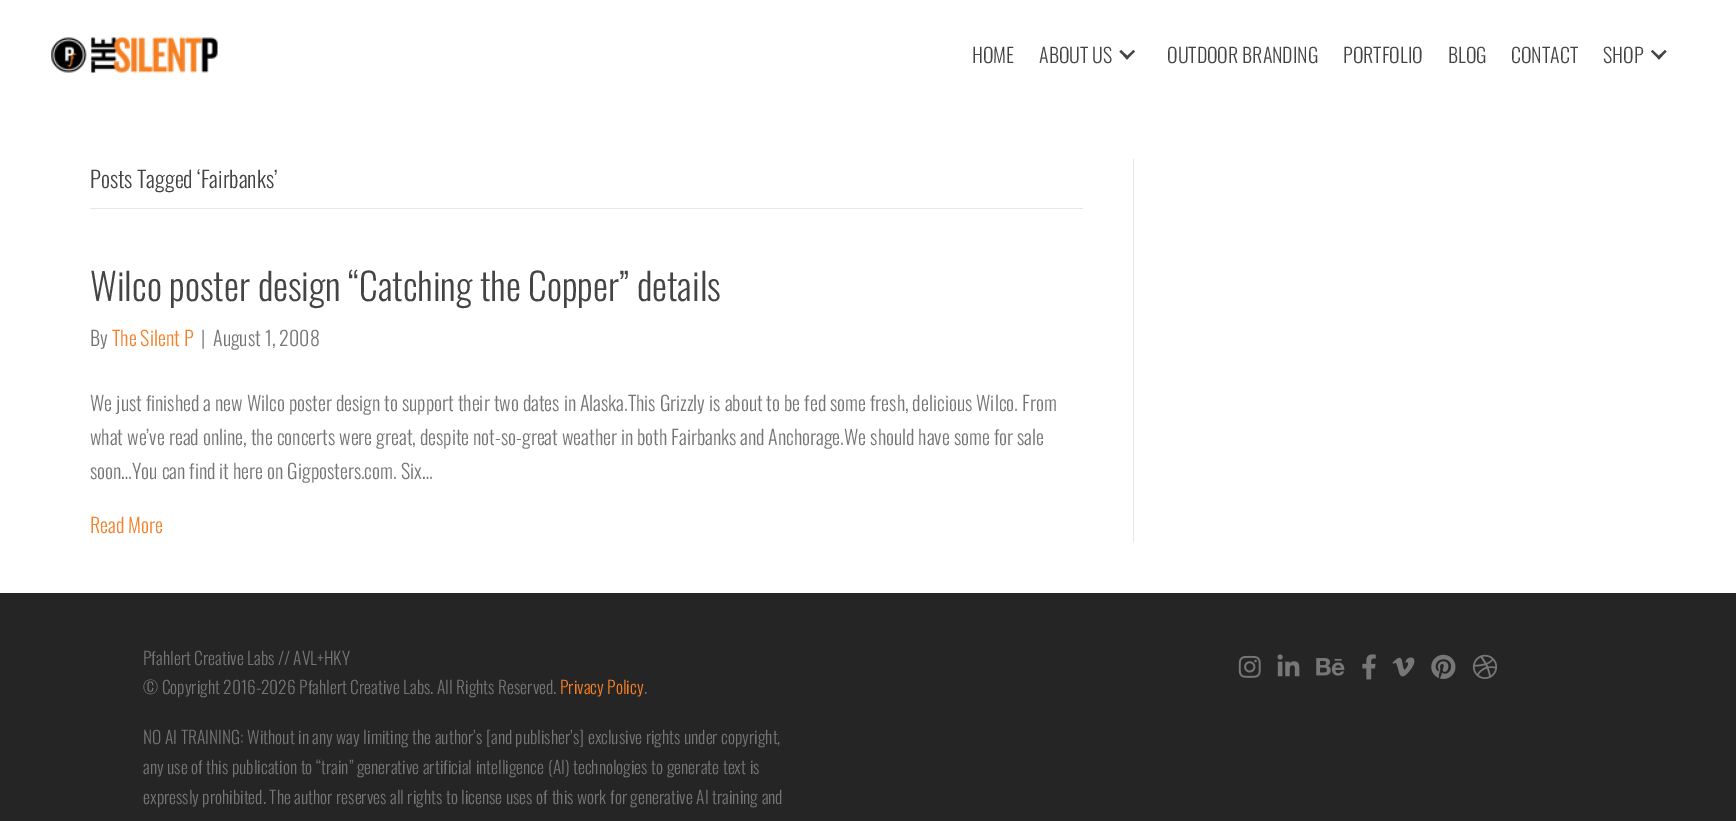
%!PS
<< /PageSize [1736 821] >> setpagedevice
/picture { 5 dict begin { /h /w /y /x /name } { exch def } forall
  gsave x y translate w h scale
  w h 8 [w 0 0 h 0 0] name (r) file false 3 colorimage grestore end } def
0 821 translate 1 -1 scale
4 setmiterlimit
1 setgray
0 0 1736 821 rectfill
(img1.rgb) 51 37 167 36 picture
/Oswald-Light [20 0 0 -20 0 0] selectfont
0.267 setgray
972 63 moveto (HOME) show
1039 63 moveto (ABOUT US) show
newpath 1133.5 50 moveto 1135 51.5 lineto 1127 59.5 lineto 1125.5 57.5 lineto closepath fill
newpath 1121 50 moveto 1129 57.5 lineto 1127 59.5 lineto 1119.5 51.5 lineto closepath fill
1167 63 moveto (OUTDOOR BRANDING) show
1343 63 moveto (PORTFOLIO) show
1448 63 moveto (BLOG) show
1511 63 moveto (CONTACT) show
1603 63 moveto (SHOP) show
newpath 1665 50 moveto 1666.5 51.5 lineto 1659 59.5 lineto 1657 57.5 lineto closepath fill
newpath 1652.5 50 moveto 1660.5 57.5 lineto 1659 59.5 lineto 1651 51.5 lineto closepath fill
0.902 setgray
1133 159 1 384 rectfill
90 208 993 1 rectfill
/Oswald-Light [22.5 0 0 -22.5 0 0] selectfont
0.267 setgray
90 188 moveto (Posts Tagged ‘Fairbanks’) show
/Oswald-Light [37.5 0 0 -37.5 0 0] selectfont
90 301 moveto (Wilco poster design “Catching the Copper” details) show
/Oswald-Light [20 0 0 -20 0 0] selectfont
0.459 setgray
90 346 moveto (By) show
0.961 0.502 0.153 setrgbcolor
112 346 moveto (The Silent P) show
0.459 setgray
201 346 moveto (|) show
213 346 moveto (August 1, 2008) show
90 411 moveto (We just finished a new Wilco poster design to support their two dates in Alaska.This Grizzly is about to be fed some fresh, delicious Wilco. From) show
90 445 moveto (what we’ve read online, the concerts were great, despite not-so-great weather in both Fairbanks and Anchorage.We should have some for sale) show
90 479 moveto (soon…You can find it here on Gigposters.com. Six…) show
0.961 0.502 0.153 setrgbcolor
90 533 moveto (Read More) show
0.145 setgray
0 593 1736 228 rectfill
/Oswald-Light [17.5 0 0 -17.5 0 0] selectfont
0.459 setgray
143 665 moveto (Pfahlert Creative Labs // AVL+HKY) show
143 694 moveto (© Copyright 2016-2026 Pfahlert Creative Labs. All Rights Reserved.) show
0.961 0.502 0.153 setrgbcolor
560 694 moveto (Privacy Policy) show
0.459 setgray
644 694 moveto (.) show
143 744 moveto (NO AI TRAINING: Without in any way limiting the author’s [and publisher’s] exclusive rights under copyright,) show
143 774 moveto (any use of this publication to “train” generative artificial intelligence \(AI\) technologies to generate text is) show
143 804 moveto (expressly prohibited. The author reserves all rights to license uses of this work for generative AI training and) show
(img2.rgb) 1238 655 23 23 picture
(img3.rgb) 1277 654 23 23 picture
(img4.rgb) 1316 658 29 18 picture
(img5.rgb) 1362 654 14 26 picture
(img6.rgb) 1392 657 23 20 picture
(img7.rgb) 1431 654 25 25 picture
(img8.rgb) 1472 654 26 25 picture
showpage
